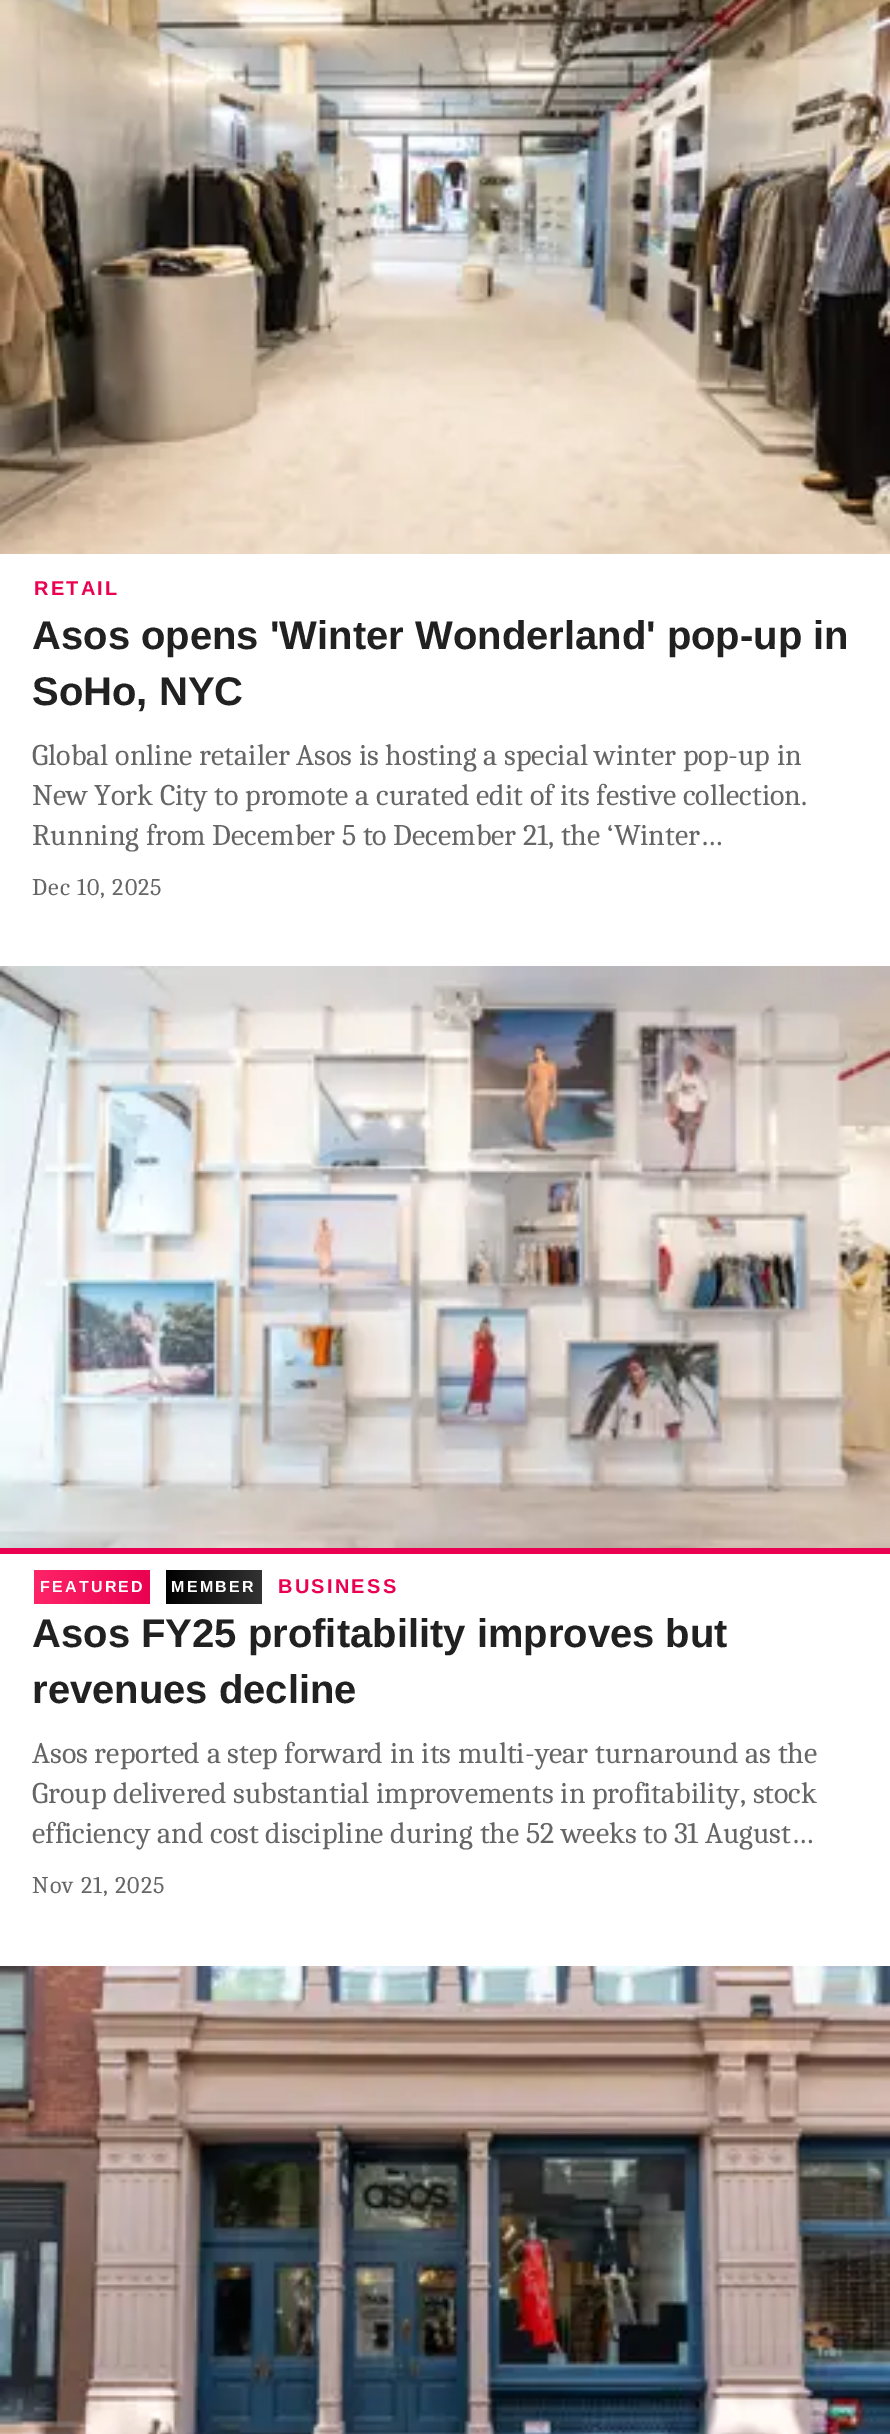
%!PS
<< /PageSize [890 2434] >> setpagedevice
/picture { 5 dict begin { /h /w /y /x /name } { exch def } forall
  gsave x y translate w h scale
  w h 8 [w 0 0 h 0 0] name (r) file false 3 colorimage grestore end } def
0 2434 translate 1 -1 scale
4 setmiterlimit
1 setgray
0 0 890 2434 rectfill
(img1.rgb) 0 0 890 554 picture
/LiberationSans-Bold [20 0 0 -20 0 0] selectfont
0.918 0.004 0.318 setrgbcolor
34 595 moveto 2.25 0 (RETAIL) ashow
/LiberationSans-Bold [40 0 0 -40 0 0] selectfont
0.129 setgray
32 649 moveto (Asos opens 'Winter Wonderland' pop-up in) show
32 705 moveto (SoHo, NYC) show
/Caladea-Regular [30 0 0 -30 0 0] selectfont
0.4 setgray
32 765 moveto (Global online retailer Asos is hosting a special winter pop-up in) show
32 805 moveto (New York City to promote a curated edit of its festive collection.) show
32 845 moveto (Running from December 5 to December 21, the ‘Winter…) show
/Caladea-Regular [24 0 0 -24 0 0] selectfont
32 895 moveto 1 0 (Dec 10, 2025) ashow
(img2.rgb) 0 966 890 582 picture
0.918 0.004 0.318 setrgbcolor
0 1548 890 6 rectfill
gsave newpath 34 1570 moveto 150 1570 lineto 150 1604 lineto 34 1604 lineto closepath clip newpath
<< /ShadingType 2 /ColorSpace /DeviceRGB /Coords [34 1587 150 1587] /Extend [true true] /Function << /FunctionType 2 /Domain [0 1] /C0 [1 0.141 0.408] /C1 [0.918 0.004 0.318] /N 1 >> >> shfill grestore
/LiberationSans-Bold [16 0 0 -16 0 0] selectfont
1 setgray
40 1592 moveto 2.25 0 (FEATURED) ashow
gsave newpath 166 1570 moveto 262 1570 lineto 262 1604 lineto 166 1604 lineto closepath clip newpath
<< /ShadingType 2 /ColorSpace /DeviceRGB /Coords [166 1587 262 1587] /Extend [true true] /Function << /FunctionType 2 /Domain [0 1] /C0 [0 0 0] /C1 [0.2 0.2 0.2] /N 1 >> >> shfill grestore
171 1592 moveto 2.25 0 (MEMBER) ashow
/LiberationSans-Bold [20 0 0 -20 0 0] selectfont
0.918 0.004 0.318 setrgbcolor
278 1593 moveto 2.25 0 (BUSINESS) ashow
/LiberationSans-Bold [40 0 0 -40 0 0] selectfont
0.129 setgray
32 1647 moveto (Asos FY25 profitability improves but) show
32 1703 moveto (revenues decline) show
/Caladea-Regular [30 0 0 -30 0 0] selectfont
0.4 setgray
32 1763 moveto (Asos reported a step forward in its multi-year turnaround as the) show
32 1803 moveto (Group delivered substantial improvements in profitability, stock) show
32 1843 moveto (efficiency and cost discipline during the 52 weeks to 31 August…) show
/Caladea-Regular [24 0 0 -24 0 0] selectfont
32 1893 moveto 1 0 (Nov 21, 2025) ashow
(img3.rgb) 0 1966 890 468 picture
showpage
